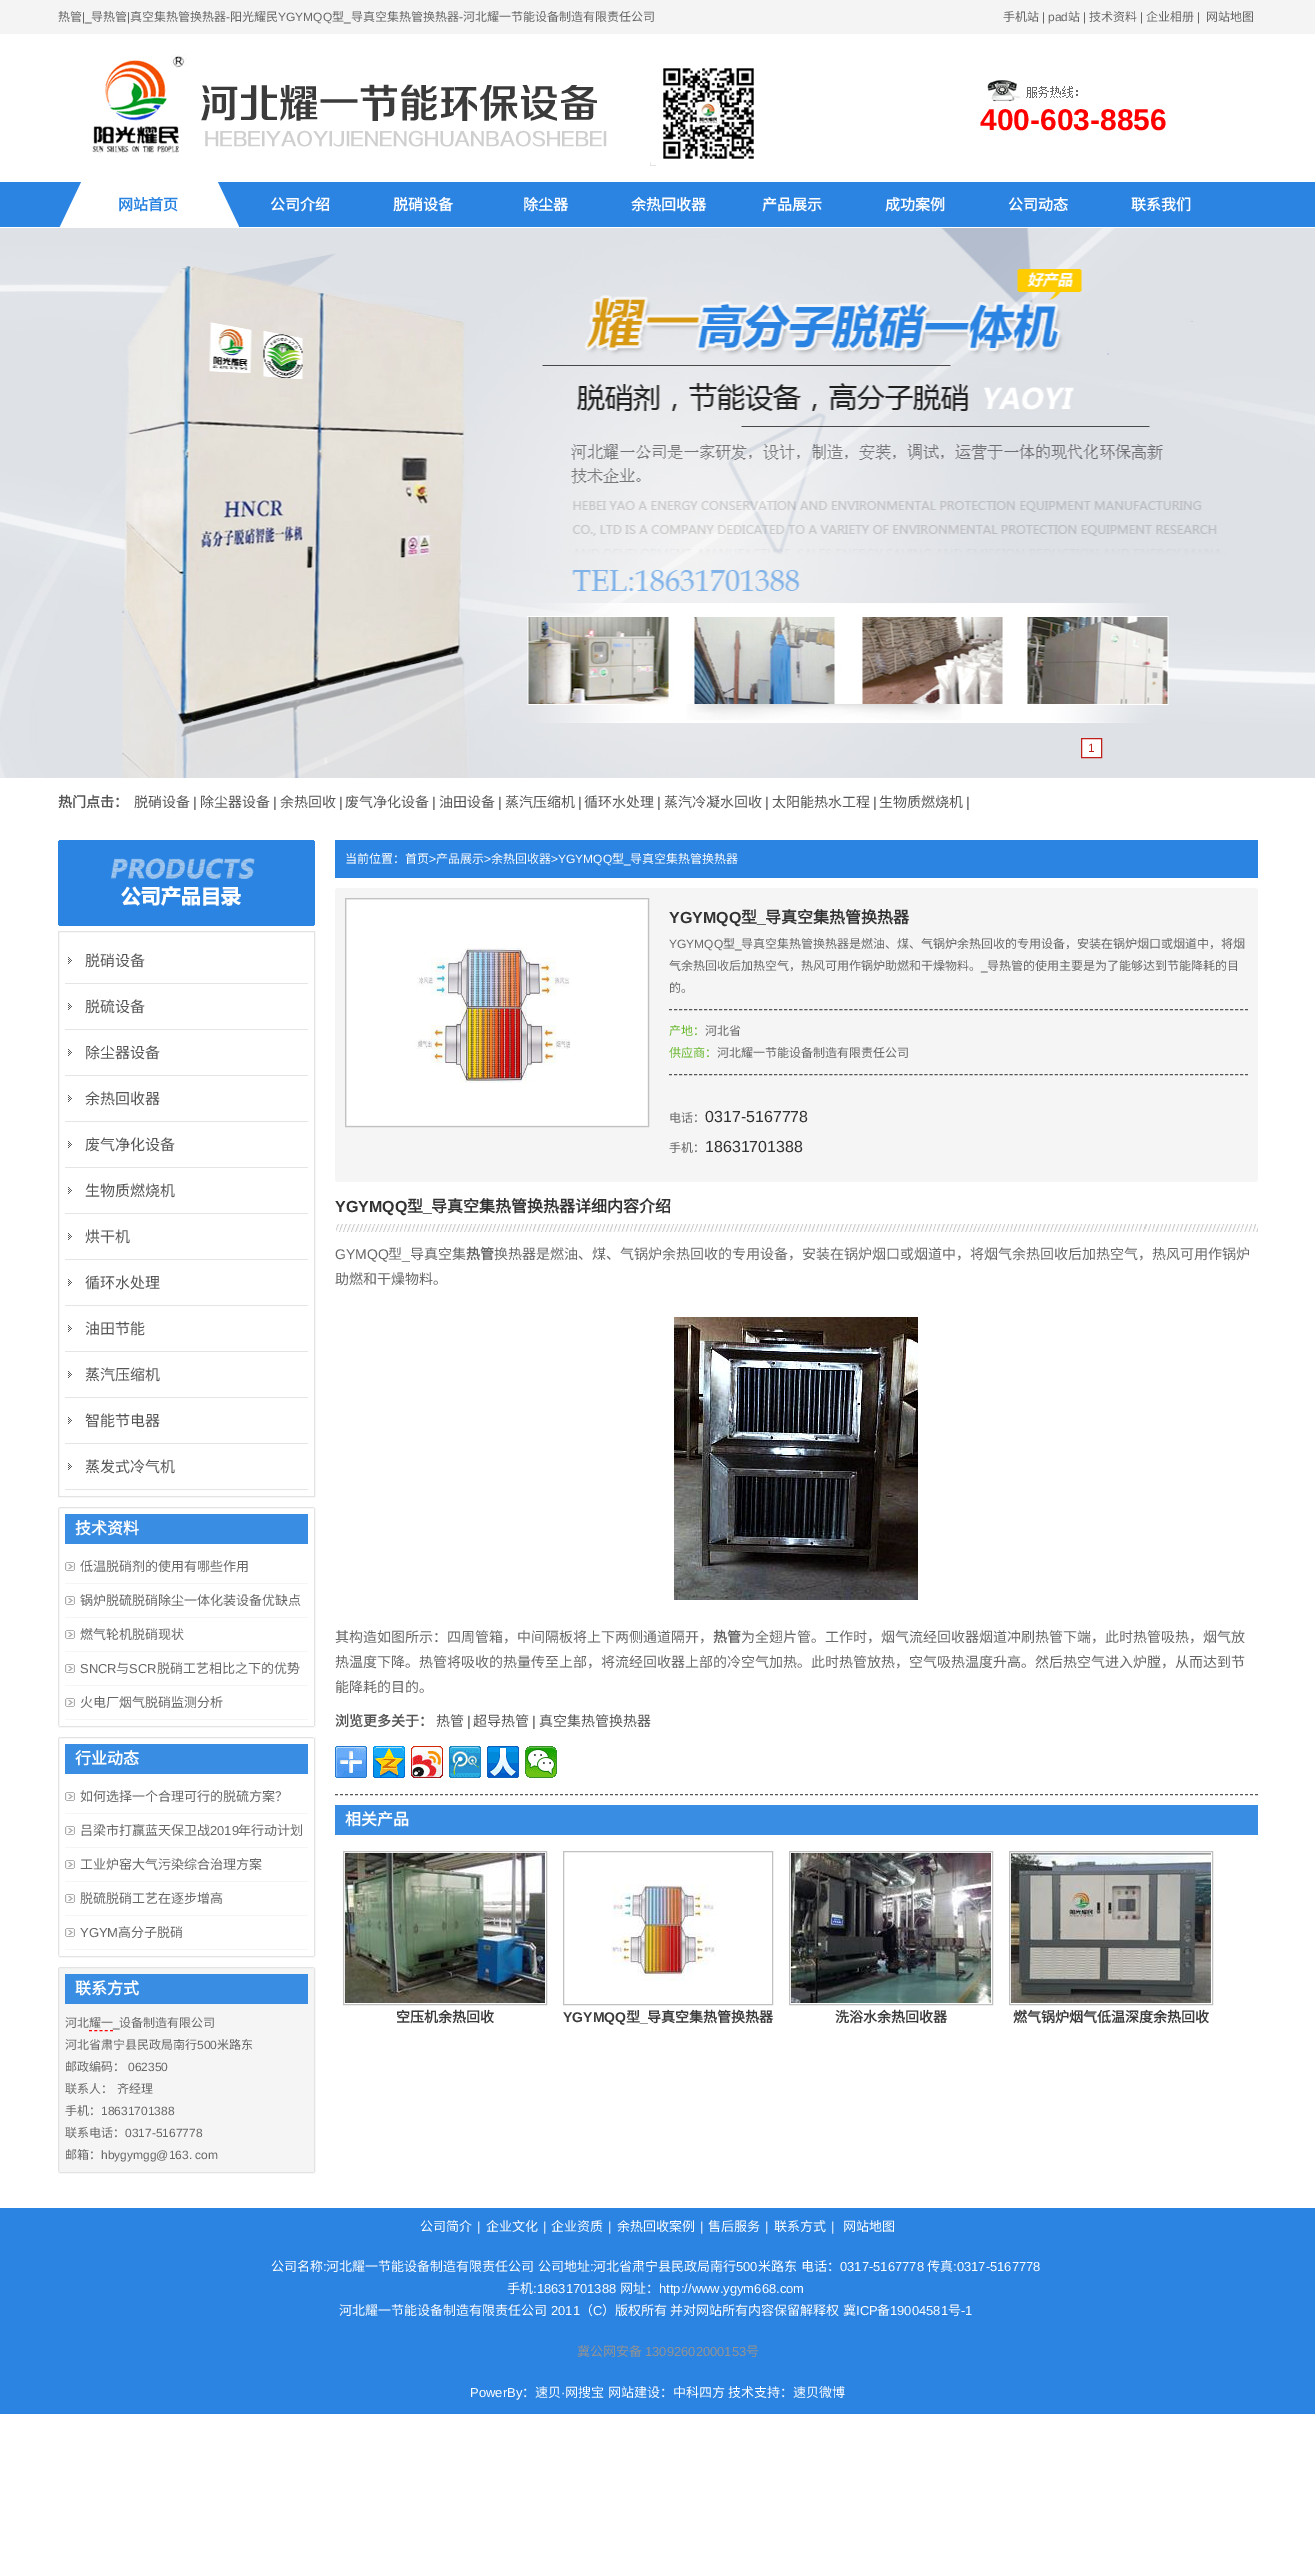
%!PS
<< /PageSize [1315 2565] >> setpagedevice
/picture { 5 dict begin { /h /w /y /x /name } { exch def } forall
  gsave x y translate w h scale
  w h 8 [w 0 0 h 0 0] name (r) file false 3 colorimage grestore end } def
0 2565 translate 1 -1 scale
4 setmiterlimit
1 setgray
0 0 1315 2565 rectfill
0.957 setgray
0 0 1315 34 rectfill
/NotoSansCJKSC-Regular [12 0 0 -12 0 0] selectfont
0.404 setgray
58 21 moveto (热管) show
/LiberationSans-Regular [12 0 0 -12 0 0] selectfont
82 21 moveto (|_) show
/NotoSansCJKSC-Regular [12 0 0 -12 0 0] selectfont
91 21 moveto (导热管) show
/LiberationSans-Regular [12 0 0 -12 0 0] selectfont
127 21 moveto (|) show
/NotoSansCJKSC-Regular [12 0 0 -12 0 0] selectfont
130 21 moveto (真空集热管换热器) show
/LiberationSans-Regular [12 0 0 -12 0 0] selectfont
226 21 moveto (-) show
/NotoSansCJKSC-Regular [12 0 0 -12 0 0] selectfont
230 21 moveto (阳光耀民) show
/LiberationSans-Regular [12 0 0 -12 0 0] selectfont
278 21 moveto (YGYMQQ) show
/NotoSansCJKSC-Regular [12 0 0 -12 0 0] selectfont
332 21 moveto (型) show
351 21 moveto (导真空集热管换热器) show
/LiberationSans-Regular [12 0 0 -12 0 0] selectfont
459 21 moveto (-) show
/NotoSansCJKSC-Regular [12 0 0 -12 0 0] selectfont
463 21 moveto (河北耀一节能设备制造有限责任公司) show
/LiberationSans-Regular [12 0 0 -12 0 0] selectfont
344 21 moveto (_) show
/NotoSansCJKSC-Regular [12 0 0 -12 0 0] selectfont
1003 21 moveto (手机站) show
/LiberationSans-Regular [12 0 0 -12 0 0] selectfont
1042 21 moveto (|) show
1048 21 moveto (pad) show
/NotoSansCJKSC-Regular [12 0 0 -12 0 0] selectfont
1068 21 moveto (站) show
/LiberationSans-Regular [12 0 0 -12 0 0] selectfont
1083 21 moveto (|) show
/NotoSansCJKSC-Regular [12 0 0 -12 0 0] selectfont
1089 21 moveto (技术资料) show
/LiberationSans-Regular [12 0 0 -12 0 0] selectfont
1140 21 moveto (|) show
/NotoSansCJKSC-Regular [12 0 0 -12 0 0] selectfont
1146 21 moveto (企业相册) show
/LiberationSans-Regular [12 0 0 -12 0 0] selectfont
1197 21 moveto (|) show
/NotoSansCJKSC-Regular [12 0 0 -12 0 0] selectfont
1206 21 moveto (网站地图) show
(img1.rgb) 92 55 662 111 picture
(img2.rgb) 987 80 91 22 picture
/LiberationSans-Bold [30 0 0 -30 0 0] selectfont
1 0 0 setrgbcolor
980 130 moveto (400-603-8856) show
0.169 0.518 0.886 setrgbcolor
0 182 1315 45 rectfill
(img3.rgb) 59 182 180 45 picture
/NotoSansCJKSC-Bold [15 0 0 -15 0 0] selectfont
118 210 moveto (网站首页) show
1 setgray
270 210 moveto (公司介绍) show
393 210 moveto (脱硝设备) show
523 210 moveto (除尘器) show
631 210 moveto (余热回收器) show
762 210 moveto (产品展示) show
885 210 moveto (成功案例) show
1008 210 moveto (公司动态) show
1131 210 moveto (联系我们) show
(img4.rgb) 0 228 1315 550 picture
newpath 1081.5 738.5 moveto 1101.5 738.5 lineto 1101.5 757.5 lineto 1081.5 757.5 lineto closepath gsave fill grestore
0.749 0.122 0.094 setrgbcolor
stroke
/LiberationSans-Regular [12 0 0 -12 0 0] selectfont
1088 752 moveto (1) show
/NotoSansCJKSC-Bold [14 0 0 -14 0 0] selectfont
0.337 setgray
58 807 moveto (热门点击：) show
/NotoSansCJKSC-Regular [14 0 0 -14 0 0] selectfont
134 807 moveto (脱硝设备) show
/LiberationSans-Regular [14 0 0 -14 0 0] selectfont
193 807 moveto (|) show
/NotoSansCJKSC-Regular [14 0 0 -14 0 0] selectfont
200 807 moveto (除尘器设备) show
/LiberationSans-Regular [14 0 0 -14 0 0] selectfont
273 807 moveto (|) show
/NotoSansCJKSC-Regular [14 0 0 -14 0 0] selectfont
280 807 moveto (余热回收) show
/LiberationSans-Regular [14 0 0 -14 0 0] selectfont
339 807 moveto (|) show
/NotoSansCJKSC-Regular [14 0 0 -14 0 0] selectfont
345 807 moveto (废气净化设备) show
/LiberationSans-Regular [14 0 0 -14 0 0] selectfont
432 807 moveto (|) show
/NotoSansCJKSC-Regular [14 0 0 -14 0 0] selectfont
439 807 moveto (油田设备) show
/LiberationSans-Regular [14 0 0 -14 0 0] selectfont
498 807 moveto (|) show
/NotoSansCJKSC-Regular [14 0 0 -14 0 0] selectfont
505 807 moveto (蒸汽压缩机) show
/LiberationSans-Regular [14 0 0 -14 0 0] selectfont
578 807 moveto (|) show
/NotoSansCJKSC-Regular [14 0 0 -14 0 0] selectfont
584 807 moveto (循环水处理) show
/LiberationSans-Regular [14 0 0 -14 0 0] selectfont
657 807 moveto (|) show
/NotoSansCJKSC-Regular [14 0 0 -14 0 0] selectfont
664 807 moveto (蒸汽冷凝水回收) show
/LiberationSans-Regular [14 0 0 -14 0 0] selectfont
765 807 moveto (|) show
/NotoSansCJKSC-Regular [14 0 0 -14 0 0] selectfont
772 807 moveto (太阳能热水工程) show
/LiberationSans-Regular [14 0 0 -14 0 0] selectfont
873 807 moveto (|) show
/NotoSansCJKSC-Regular [14 0 0 -14 0 0] selectfont
879 807 moveto (生物质燃烧机) show
/LiberationSans-Regular [14 0 0 -14 0 0] selectfont
966 807 moveto (|) show
(img5.rgb) 58 840 257 86 picture
0.886 0.894 0.89 setrgbcolor
58.5 931.5 256 565 rectstroke
(img6.rgb) 68 957 4 7 picture
0.898 setgray
65 983 243 1 rectfill
/NotoSansCJKSC-Regular [15 0 0 -15 0 0] selectfont
0.337 setgray
85 966 moveto (脱硝设备) show
(img6.rgb) 68 1003 4 7 picture
0.898 setgray
65 1029 243 1 rectfill
0.337 setgray
85 1012 moveto (脱硫设备) show
(img6.rgb) 68 1049 4 7 picture
0.898 setgray
65 1075 243 1 rectfill
0.337 setgray
85 1058 moveto (除尘器设备) show
(img6.rgb) 68 1095 4 7 picture
0.898 setgray
65 1121 243 1 rectfill
0.337 setgray
85 1104 moveto (余热回收器) show
(img6.rgb) 68 1141 4 7 picture
0.898 setgray
65 1167 243 1 rectfill
0.337 setgray
85 1150 moveto (废气净化设备) show
(img6.rgb) 68 1187 4 7 picture
0.898 setgray
65 1213 243 1 rectfill
0.337 setgray
85 1196 moveto (生物质燃烧机) show
(img6.rgb) 68 1233 4 7 picture
0.898 setgray
65 1259 243 1 rectfill
0.337 setgray
85 1242 moveto (烘干机) show
(img6.rgb) 68 1279 4 7 picture
0.898 setgray
65 1305 243 1 rectfill
0.337 setgray
85 1288 moveto (循环水处理) show
(img6.rgb) 68 1325 4 7 picture
0.898 setgray
65 1351 243 1 rectfill
0.337 setgray
85 1334 moveto (油田节能) show
(img6.rgb) 68 1371 4 7 picture
0.898 setgray
65 1397 243 1 rectfill
0.337 setgray
85 1380 moveto (蒸汽压缩机) show
(img6.rgb) 68 1417 4 7 picture
0.898 setgray
65 1443 243 1 rectfill
0.337 setgray
85 1426 moveto (智能节电器) show
(img6.rgb) 68 1463 4 7 picture
0.898 setgray
65 1489 243 1 rectfill
0.337 setgray
85 1472 moveto (蒸发式冷气机) show
0.886 0.894 0.89 setrgbcolor
58.5 1507.5 256 219 rectstroke
(img7.rgb) 58 1507 2 1 picture
(img8.rgb) 313 1507 2 2 picture
0.224 0.553 0.89 setrgbcolor
65 1514 243 30 rectfill
/NotoSansCJKSC-Bold [16 0 0 -16 0 0] selectfont
1 setgray
75 1534 moveto (技术资料) show
(img9.rgb) 65 1562 10 9 picture
0.961 setgray
65 1583 243 1 rectfill
/NotoSansCJKSC-Regular [13 0 0 -13 0 0] selectfont
0.404 setgray
80 1571 moveto (低温脱硝剂的使用有哪些作用) show
(img9.rgb) 65 1596 10 9 picture
0.961 setgray
65 1617 243 1 rectfill
0.404 setgray
80 1605 moveto (锅炉脱硫脱硝除尘一体化装设备优缺点) show
(img9.rgb) 65 1630 10 9 picture
0.961 setgray
65 1651 243 1 rectfill
0.404 setgray
80 1639 moveto (燃气轮机脱硝现状) show
(img9.rgb) 65 1664 10 9 picture
0.961 setgray
65 1685 243 1 rectfill
/LiberationSans-Regular [13 0 0 -13 0 0] selectfont
0.404 setgray
80 1673 moveto (SNCR) show
/NotoSansCJKSC-Regular [13 0 0 -13 0 0] selectfont
116 1673 moveto (与) show
/LiberationSans-Regular [13 0 0 -13 0 0] selectfont
129 1673 moveto (SCR) show
/NotoSansCJKSC-Regular [13 0 0 -13 0 0] selectfont
157 1673 moveto (脱硝工艺相比之下的优势) show
(img9.rgb) 65 1698 10 9 picture
0.961 setgray
65 1719 243 1 rectfill
0.404 setgray
80 1707 moveto (火电厂烟气脱硝监测分析) show
(img10.rgb) 58 1725 2 2 picture
0.984 0.988 0.984 setrgbcolor
314 1726 1 1 rectfill
0.886 0.894 0.89 setrgbcolor
58.5 1737.5 256 219 rectstroke
(img7.rgb) 58 1737 2 1 picture
(img8.rgb) 313 1737 2 2 picture
0.224 0.553 0.89 setrgbcolor
65 1744 243 30 rectfill
/NotoSansCJKSC-Bold [16 0 0 -16 0 0] selectfont
1 setgray
75 1764 moveto (行业动态) show
(img9.rgb) 65 1792 10 9 picture
0.961 setgray
65 1813 243 1 rectfill
/NotoSansCJKSC-Regular [13 0 0 -13 0 0] selectfont
0.404 setgray
80 1801 moveto (如何选择一个合理可行的脱硫方案？) show
(img9.rgb) 65 1826 10 9 picture
0.961 setgray
65 1847 243 1 rectfill
0.404 setgray
80 1835 moveto (吕梁市打赢蓝天保卫战) show
/LiberationSans-Regular [13 0 0 -13 0 0] selectfont
210 1835 moveto (2019) show
/NotoSansCJKSC-Regular [13 0 0 -13 0 0] selectfont
238 1835 moveto (年行动计划) show
(img9.rgb) 65 1860 10 9 picture
0.961 setgray
65 1881 243 1 rectfill
0.404 setgray
80 1869 moveto (工业炉窑大气污染综合治理方案) show
(img9.rgb) 65 1894 10 9 picture
0.961 setgray
65 1915 243 1 rectfill
0.404 setgray
80 1903 moveto (脱硫脱硝工艺在逐步增高) show
(img9.rgb) 65 1928 10 9 picture
0.961 setgray
65 1949 243 1 rectfill
/LiberationSans-Regular [13 0 0 -13 0 0] selectfont
0.404 setgray
80 1937 moveto (YGYM) show
/NotoSansCJKSC-Regular [13 0 0 -13 0 0] selectfont
118 1937 moveto (高分子脱硝) show
(img10.rgb) 58 1955 2 2 picture
0.984 0.988 0.984 setrgbcolor
314 1956 1 1 rectfill
0.961 setgray
newpath 58.5 1967.5 moveto 314.5 1967.5 lineto 314.5 2172.5 lineto 58.5 2172.5 lineto closepath gsave fill grestore
0.886 0.894 0.89 setrgbcolor
stroke
(img7.rgb) 58 1967 2 1 picture
(img11.rgb) 313 1967 2 2 picture
0.224 0.553 0.89 setrgbcolor
65 1974 243 30 rectfill
/NotoSansCJKSC-Bold [16 0 0 -16 0 0] selectfont
1 setgray
75 1994 moveto (联系方式) show
/NotoSansCJKSC-Regular [12 0 0 -12 0 0] selectfont
0.404 setgray
65 2027 moveto (河北耀一) show
119 2027 moveto (设备制造有限公司) show
/LiberationSans-Regular [12 0 0 -12 0 0] selectfont
113 2027 moveto (_) show
1 0 0 setrgbcolor
[3 2.25] 0 setdash
newpath 89 2030.5 moveto 113 2030.5 lineto stroke
/NotoSansCJKSC-Regular [12 0 0 -12 0 0] selectfont
0.404 setgray
65 2049 moveto (河北省肃宁县民政局南行) show
/LiberationSans-Regular [12 0 0 -12 0 0] selectfont
197 2049 moveto (500) show
/NotoSansCJKSC-Regular [12 0 0 -12 0 0] selectfont
217 2049 moveto (米路东) show
65 2071 moveto (邮政编码：) show
/LiberationSans-Regular [12 0 0 -12 0 0] selectfont
128 2071 moveto (062350) show
/NotoSansCJKSC-Regular [12 0 0 -12 0 0] selectfont
65 2093 moveto 1 0 32 (联系人： 齐经理) widthshow
65 2115 moveto (手机：) show
/LiberationSans-Regular [12 0 0 -12 0 0] selectfont
101 2115 moveto (18631701388) show
/NotoSansCJKSC-Regular [12 0 0 -12 0 0] selectfont
65 2137 moveto (联系电话：) show
/LiberationSans-Regular [12 0 0 -12 0 0] selectfont
125 2137 moveto (0317-5167778) show
/NotoSansCJKSC-Regular [12 0 0 -12 0 0] selectfont
65 2159 moveto (邮箱：) show
/LiberationSans-Regular [12 0 0 -12 0 0] selectfont
101 2159 moveto (hbygymgg@163. com) show
(img12.rgb) 58 2171 2 2 picture
0.984 0.988 0.984 setrgbcolor
314 2172 1 1 rectfill
0.169 0.518 0.886 setrgbcolor
335 840 923 38 rectfill
/NotoSansCJKSC-Regular [12 0 0 -12 0 0] selectfont
1 setgray
345 863 moveto (当前位置：首页) show
/LiberationSans-Regular [12 0 0 -12 0 0] selectfont
429 863 moveto (>) show
/NotoSansCJKSC-Regular [12 0 0 -12 0 0] selectfont
436 863 moveto (产品展示) show
/LiberationSans-Regular [12 0 0 -12 0 0] selectfont
484 863 moveto (>) show
/NotoSansCJKSC-Regular [12 0 0 -12 0 0] selectfont
491 863 moveto (余热回收器) show
/LiberationSans-Regular [12 0 0 -12 0 0] selectfont
551 863 moveto (>YGYMQQ) show
/NotoSansCJKSC-Regular [12 0 0 -12 0 0] selectfont
612 863 moveto (型) show
630 863 moveto (导真空集热管换热器) show
/LiberationSans-Regular [12 0 0 -12 0 0] selectfont
624 863 moveto (_) show
0.961 setgray
335 888 923 294 rectfill
(img13.rgb) 335 888 2 1 picture
(img14.rgb) 1256 888 2 1 picture
0.757 setgray
[] 0 setdash
345.5 898.5 303 228 rectstroke
(img15.rgb) 347 900 300 225 picture
0.333 setgray
[3 2.01] 0 setdash
newpath 669 1009.5 moveto 1248 1009.5 lineto stroke
/LiberationSans-Bold [16 0 0 -16 0 0] selectfont
0.196 setgray
669 923 moveto (YGYMQQ) show
/NotoSansCJKSC-Bold [16 0 0 -16 0 0] selectfont
741 923 moveto (型) show
/LiberationSans-Bold [16 0 0 -16 0 0] selectfont
757 923 moveto (_) show
/NotoSansCJKSC-Bold [16 0 0 -16 0 0] selectfont
765 923 moveto (导真空集热管换热器) show
/LiberationSans-Regular [12 0 0 -12 0 0] selectfont
0.404 setgray
669 948 moveto (YGYMQQ) show
/NotoSansCJKSC-Regular [12 0 0 -12 0 0] selectfont
723 948 moveto (型) show
/LiberationSans-Regular [12 0 0 -12 0 0] selectfont
735 948 moveto (_) show
/NotoSansCJKSC-Regular [12 0 0 -12 0 0] selectfont
741 948 moveto (导真空集热管换热器是燃油、煤、气锅炉余热回收的专用设备，安装在锅炉烟口或烟道中，将烟) show
669 970 moveto (气余热回收后加热空气，热风可用作锅炉助燃和干燥物料。) show
987 970 moveto (导热管的使用主要是为了能够达到节能降耗的目) show
/LiberationSans-Regular [12 0 0 -12 0 0] selectfont
981 970 moveto (_) show
/NotoSansCJKSC-Regular [12 0 0 -12 0 0] selectfont
669 992 moveto (的。) show
0.333 setgray
newpath 669 1074.5 moveto 1248 1074.5 lineto stroke
0.408 0.725 0.18 setrgbcolor
669 1035 moveto (产地：) show
0.404 setgray
705 1035 moveto (河北省) show
0.408 0.725 0.18 setrgbcolor
669 1057 moveto (供应商：) show
0.404 setgray
717 1057 moveto (河北耀一节能设备制造有限责任公司) show
669 1122 moveto (电话：) show
/LiberationSans-Regular [16 0 0 -16 0 0] selectfont
0.196 setgray
705 1122 moveto (0317-5167778) show
/NotoSansCJKSC-Regular [12 0 0 -12 0 0] selectfont
0.404 setgray
669 1152 moveto (手机：) show
/LiberationSans-Regular [16 0 0 -16 0 0] selectfont
0.196 setgray
705 1152 moveto (18631701388) show
(img16.rgb) 335 1181 2 1 picture
(img17.rgb) 1256 1180 2 2 picture
(img18.rgb) 336 1224 922 8 picture
/LiberationSans-Bold [16 0 0 -16 0 0] selectfont
335 1212 moveto (YGYMQQ) show
/NotoSansCJKSC-Bold [16 0 0 -16 0 0] selectfont
407 1212 moveto (型) show
/LiberationSans-Bold [16 0 0 -16 0 0] selectfont
423 1212 moveto (_) show
/NotoSansCJKSC-Bold [16 0 0 -16 0 0] selectfont
431 1212 moveto (导真空集热管换热器详细内容介绍) show
/LiberationSans-Regular [14 0 0 -14 0 0] selectfont
0.404 setgray
335 1259 moveto (GYMQQ) show
/NotoSansCJKSC-Regular [14 0 0 -14 0 0] selectfont
388 1259 moveto (型) show
/LiberationSans-Regular [14 0 0 -14 0 0] selectfont
402 1259 moveto (_) show
/NotoSansCJKSC-Regular [14 0 0 -14 0 0] selectfont
410 1259 moveto (导真空集) show
/NotoSansCJKSC-Bold [14 0 0 -14 0 0] selectfont
466 1259 moveto (热管) show
/NotoSansCJKSC-Regular [14 0 0 -14 0 0] selectfont
494 1259 moveto (换热器是燃油、煤、气锅炉余热回收的专用设备，安装在锅炉烟口或烟道中，将烟气余热回收后加热空气，热风可用作锅炉) show
335 1284 moveto (助燃和干燥物料。) show
(img19.rgb) 674 1317 244 283 picture
335 1642 moveto (其构造如图所示：四周管箱，中间隔板将上下两侧通道隔开，) show
/NotoSansCJKSC-Bold [14 0 0 -14 0 0] selectfont
713 1642 moveto (热管) show
/NotoSansCJKSC-Regular [14 0 0 -14 0 0] selectfont
741 1642 moveto (为全翅片管。工作时，烟气流经回收器烟道冲刷热管下端，此时热管吸热，烟气放) show
335 1667 moveto (热温度下降。热管将吸收的热量传至上部，将流经回收器上部的冷空气加热。此时热管放热，空气吸热温度升高。然后热空气进入炉膛，从而达到节) show
335 1692 moveto (能降耗的目的。) show
/NotoSansCJKSC-Bold [14 0 0 -14 0 0] selectfont
0.337 setgray
335 1726 moveto (浏览更多关于：) show
/NotoSansCJKSC-Regular [14 0 0 -14 0 0] selectfont
436 1726 moveto (热管) show
/LiberationSans-Regular [14 0 0 -14 0 0] selectfont
467 1726 moveto (|) show
/NotoSansCJKSC-Regular [14 0 0 -14 0 0] selectfont
473 1726 moveto (超导热管) show
/LiberationSans-Regular [14 0 0 -14 0 0] selectfont
532 1726 moveto (|) show
/NotoSansCJKSC-Regular [14 0 0 -14 0 0] selectfont
539 1726 moveto (真空集热管换热器) show
0.333 setgray
[3 2] 0 setdash
newpath 335 1794.5 moveto 1258 1794.5 lineto stroke
(img20.rgb) 335 1746 32 32 picture
(img21.rgb) 373 1746 32 32 picture
(img22.rgb) 411 1746 32 32 picture
(img23.rgb) 449 1746 32 32 picture
(img24.rgb) 487 1746 32 32 picture
(img25.rgb) 525 1746 32 32 picture
0.224 0.553 0.89 setrgbcolor
335 1805 923 30 rectfill
/NotoSansCJKSC-Bold [16 0 0 -16 0 0] selectfont
1 setgray
345 1825 moveto (相关产品) show
0.757 setgray
[] 0 setdash
343.5 1851.5 203 153 rectstroke
(img26.rgb) 345 1853 200 150 picture
/NotoSansCJKSC-Bold [14 0 0 -14 0 0] selectfont
0.231 setgray
396 2022 moveto (空压机余热回收) show
0.757 setgray
563.5 1851.5 209 153 rectstroke
(img27.rgb) 611 1884 106 97 picture
/LiberationSans-Bold [14 0 0 -14 0 0] selectfont
0.231 setgray
563 2022 moveto (YGYMQQ) show
/NotoSansCJKSC-Bold [14 0 0 -14 0 0] selectfont
626 2022 moveto (型) show
/LiberationSans-Bold [14 0 0 -14 0 0] selectfont
640 2022 moveto (_) show
/NotoSansCJKSC-Bold [14 0 0 -14 0 0] selectfont
647 2022 moveto (导真空集热管换热器) show
0.757 setgray
789.5 1851.5 203 153 rectstroke
(img28.rgb) 791 1853 200 150 picture
0.231 setgray
835 2022 moveto (洗浴水余热回收器) show
0.757 setgray
1009.5 1851.5 203 153 rectstroke
(img29.rgb) 1011 1853 200 150 picture
0.231 setgray
1013 2022 moveto (燃气锅炉烟气低温深度余热回收) show
0.169 0.518 0.886 setrgbcolor
0 2208 1315 38 rectfill
/NotoSansCJKSC-Regular [13 0 0 -13 0 0] selectfont
1 setgray
420 2231 moveto (公司简介) show
/LiberationSans-Regular [13 0 0 -13 0 0] selectfont
477 2231 moveto (|) show
/NotoSansCJKSC-Regular [13 0 0 -13 0 0] selectfont
486 2231 moveto (企业文化) show
/LiberationSans-Regular [13 0 0 -13 0 0] selectfont
543 2231 moveto (|) show
/NotoSansCJKSC-Regular [13 0 0 -13 0 0] selectfont
551 2231 moveto (企业资质) show
/LiberationSans-Regular [13 0 0 -13 0 0] selectfont
608 2231 moveto (|) show
/NotoSansCJKSC-Regular [13 0 0 -13 0 0] selectfont
617 2231 moveto (余热回收案例) show
/LiberationSans-Regular [13 0 0 -13 0 0] selectfont
700 2231 moveto (|) show
/NotoSansCJKSC-Regular [13 0 0 -13 0 0] selectfont
708 2231 moveto (售后服务) show
/LiberationSans-Regular [13 0 0 -13 0 0] selectfont
765 2231 moveto (|) show
/NotoSansCJKSC-Regular [13 0 0 -13 0 0] selectfont
774 2231 moveto (联系方式) show
/LiberationSans-Regular [13 0 0 -13 0 0] selectfont
831 2231 moveto (|) show
/NotoSansCJKSC-Regular [13 0 0 -13 0 0] selectfont
843 2231 moveto (网站地图) show
0.169 0.518 0.886 setrgbcolor
0 2246 1315 168 rectfill
1 setgray
271 2271 moveto (公司名称) show
/LiberationSans-Regular [13 0 0 -13 0 0] selectfont
323 2271 moveto (:) show
/NotoSansCJKSC-Regular [13 0 0 -13 0 0] selectfont
326 2271 moveto (河北耀一节能设备制造有限责任公司) show
538 2271 moveto (公司地址) show
/LiberationSans-Regular [13 0 0 -13 0 0] selectfont
590 2271 moveto (:) show
/NotoSansCJKSC-Regular [13 0 0 -13 0 0] selectfont
593 2271 moveto (河北省肃宁县民政局南行) show
/LiberationSans-Regular [13 0 0 -13 0 0] selectfont
736 2271 moveto (500) show
/NotoSansCJKSC-Regular [13 0 0 -13 0 0] selectfont
758 2271 moveto (米路东) show
801 2271 moveto (电话：) show
/LiberationSans-Regular [13 0 0 -13 0 0] selectfont
840 2271 moveto (0317-5167778) show
/NotoSansCJKSC-Regular [13 0 0 -13 0 0] selectfont
927 2271 moveto (传真) show
/LiberationSans-Regular [13 0 0 -13 0 0] selectfont
953 2271 moveto (:0317-5167778) show
/NotoSansCJKSC-Regular [13 0 0 -13 0 0] selectfont
507 2293 moveto (手机) show
/LiberationSans-Regular [13 0 0 -13 0 0] selectfont
533 2293 moveto (:18631701388) show
/NotoSansCJKSC-Regular [13 0 0 -13 0 0] selectfont
620 2293 moveto (网址：) show
/LiberationSans-Regular [13 0 0 -13 0 0] selectfont
659 2293 moveto (http://www.ygym668.com) show
/NotoSansCJKSC-Regular [13 0 0 -13 0 0] selectfont
339 2315 moveto (河北耀一节能设备制造有限责任公司) show
/LiberationSans-Regular [13 0 0 -13 0 0] selectfont
551 2315 moveto (2011) show
/NotoSansCJKSC-Regular [13 0 0 -13 0 0] selectfont
580 2315 moveto (（) show
/LiberationSans-Regular [13 0 0 -13 0 0] selectfont
593 2315 moveto (C) show
/NotoSansCJKSC-Regular [13 0 0 -13 0 0] selectfont
602 2315 moveto (）版权所有 并对网站所有内容保留解释权) show
843 2315 moveto (冀) show
/LiberationSans-Regular [13 0 0 -13 0 0] selectfont
856 2315 moveto (ICP) show
/NotoSansCJKSC-Regular [13 0 0 -13 0 0] selectfont
877 2315 moveto (备) show
/LiberationSans-Regular [13 0 0 -13 0 0] selectfont
890 2315 moveto (19004581) show
/NotoSansCJKSC-Regular [13 0 0 -13 0 0] selectfont
948 2315 moveto (号) show
/LiberationSans-Regular [13 0 0 -13 0 0] selectfont
961 2315 moveto (-1) show
/NotoSansCJKSC-Regular [13 0 0 -13 0 0] selectfont
0.576 setgray
577 2356 moveto (冀公网安备) show
/LiberationSans-Regular [13 0 0 -13 0 0] selectfont
645 2356 moveto (13092602000153) show
/NotoSansCJKSC-Regular [13 0 0 -13 0 0] selectfont
746 2356 moveto (号) show
/LiberationSans-Regular [13 0 0 -13 0 0] selectfont
1 setgray
470 2397 moveto (PowerBy) show
/NotoSansCJKSC-Regular [13 0 0 -13 0 0] selectfont
522 2397 moveto (：速贝) show
/LiberationSans-Regular [13 0 0 -13 0 0] selectfont
561 2397 moveto (·) show
/NotoSansCJKSC-Regular [13 0 0 -13 0 0] selectfont
565 2397 moveto (网搜宝) show
608 2397 moveto (网站建设：中科四方) show
728 2397 moveto (技术支持：速贝微博) show
showpage
